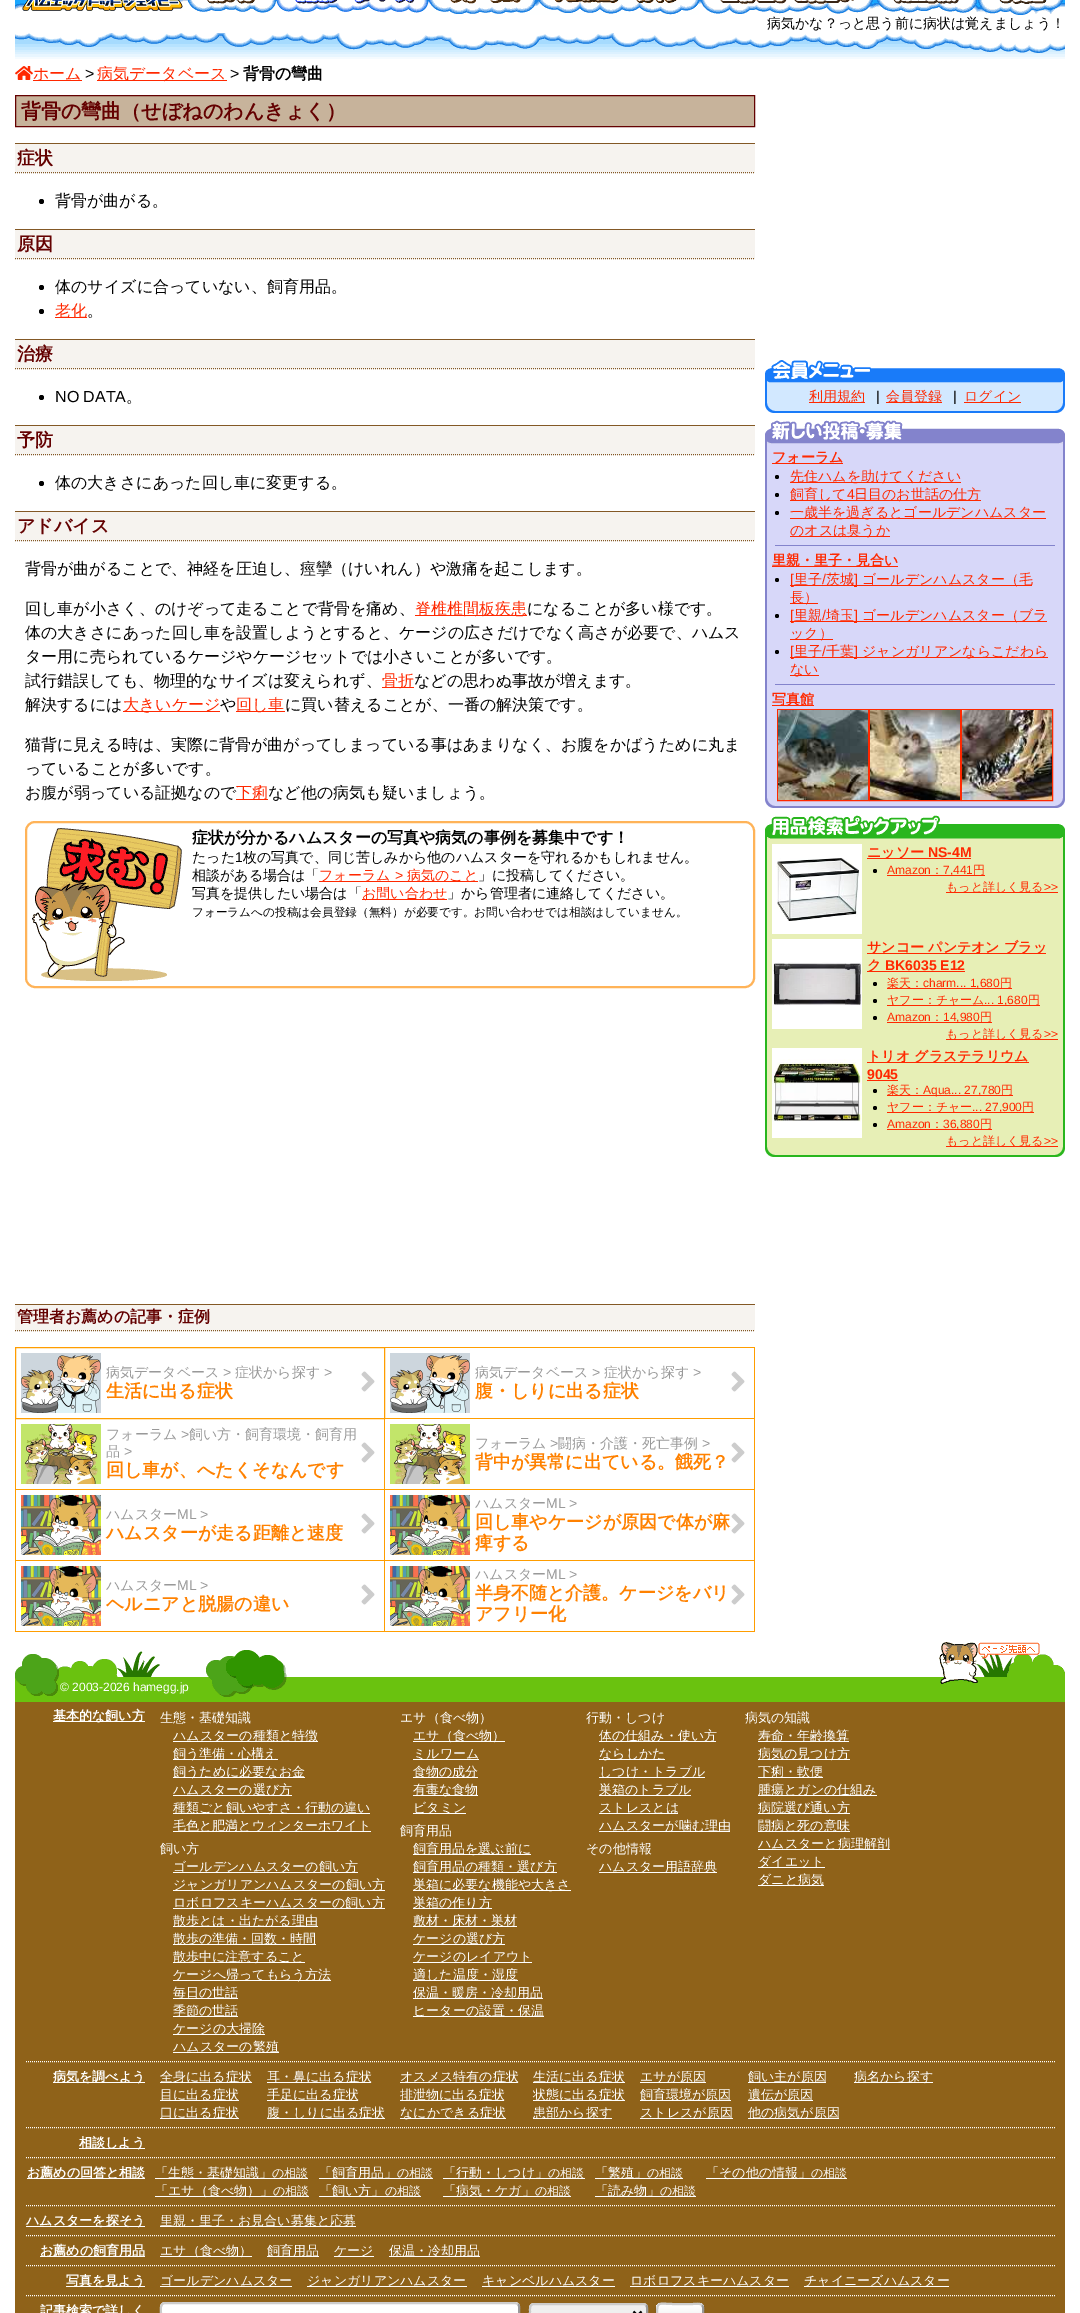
%!PS
<< /PageSize [1080 2313] /PageUsesTransparency true >> setpagedevice
/alpha { dup .setfillconstantalpha .setstrokeconstantalpha } def
/roundrect { 5 dict begin { /r /h /w /y /x } { exch def } forall
  x r add y moveto x w add y 2 copy h add r arct x w add y h add x 1 index r arct
  x y h add x y r arct x y 2 copy exch w add exch r arct closepath end } def
/shadow { 12 dict begin { /a /b /q /h /w /y /x } { exch def } forall gsave /was 0 def
  9 -2 -9 { dup b mul 4 div /e exch def 1 sub .425 mul 2.718 exch exp 1 add a .99 .min exch div /now exch def
    1 1 now sub 1 was sub div sub alpha /was now def
    w h .min e 2 mul add 0 gt { x e sub y e sub w e 2 mul add h e 2 mul add
      q e add b .6 mul add w h .min 2 div e add .min 0 .max roundrect fill } if } for grestore end } def
/picture { 5 dict begin { /h /w /y /x /name } { exch def } forall
  gsave x y translate w h scale
  w h 8 [w 0 0 h 0 0] name (r) file false 3 colorimage grestore end } def
0 .pushpdf14devicefilter
0 2313 translate 1 -1 scale
4 setmiterlimit
1 setgray
0 0 1080 2313 rectfill
(img1.rgb) 15 0 172 11 picture
(img2.rgb) 187 0 90 15 picture
(img3.rgb) 277 0 154 15 picture
(img4.rgb) 431 0 106 15 picture
(img5.rgb) 537 0 162 15 picture
(img6.rgb) 699 0 175 15 picture
(img7.rgb) 874 0 102 15 picture
(img8.rgb) 976 0 89 15 picture
/WenQuanYiZenHei-Medium [14 0 0 -14 0 0] selectfont
0 setgray
767 28 moveto (病気かな？っと思う前に病状は覚えましょう！) show
(img9.rgb) 15 33 1050 26 picture
(img10.rgb) 15 66 18 14 picture
1 0.157 0 setrgbcolor
33 80 49 1 rectfill
/WenQuanYiZenHei-Medium [16 0 0 -16 0 0] selectfont
33 79 moveto (ホーム) show
/LiberationSans-Regular [16 0 0 -16 0 0] selectfont
0 setgray
85 79 moveto (>) show
1 0.157 0 setrgbcolor
97 80 130 1 rectfill
/WenQuanYiZenHei-Medium [16 0 0 -16 0 0] selectfont
97 79 moveto (病気データベース) show
/LiberationSans-Regular [16 0 0 -16 0 0] selectfont
0 setgray
230 79 moveto (>) show
/WenQuanYiZenHei-Bold [16 0 0 -16 0 0] selectfont
243 79 moveto (背骨の彎曲) show
0.78 0.702 0.608 setrgbcolor
newpath 15.5 95.5 moveto 754.5 95.5 lineto 754.5 126.5 lineto 15.5 126.5 lineto closepath gsave fill grestore
0.392 0.004 0.004 setrgbcolor
stroke
/WenQuanYiZenHei-Bold [20 0 0 -20 0 0] selectfont
21 118 moveto (背骨の彎曲（せぼねのわんきょく）) show
0.965 0.953 0.937 setrgbcolor
15 144 740 29 rectfill
0.514 0.345 0.145 setrgbcolor
15 143 740 1 rectfill
[1 1] 0 setdash
newpath 15 172.5 moveto 755 172.5 lineto stroke
/WenQuanYiZenHei-Bold [18 0 0 -18 0 0] selectfont
0.392 0.004 0.004 setrgbcolor
17 164 moveto (症状) show
0 setgray
newpath 41.5 201.5 2.5 0 360 arc closepath fill
/WenQuanYiZenHei-Medium [16 0 0 -16 0 0] selectfont
55 206 moveto (背骨が曲がる。) show
0.965 0.953 0.937 setrgbcolor
15 230 740 29 rectfill
0.514 0.345 0.145 setrgbcolor
15 229 740 1 rectfill
newpath 15 258.5 moveto 755 258.5 lineto stroke
/WenQuanYiZenHei-Bold [18 0 0 -18 0 0] selectfont
0.392 0.004 0.004 setrgbcolor
17 250 moveto (原因) show
0 setgray
newpath 41.5 287.5 2.5 0 360 arc closepath fill
/WenQuanYiZenHei-Medium [16 0 0 -16 0 0] selectfont
55 292 moveto (体のサイズに合っていない、飼育用品。) show
newpath 41.5 311.5 2.5 0 360 arc closepath fill
1 0.157 0 setrgbcolor
55 317 32 1 rectfill
55 316 moveto (老化) show
0 setgray
87 316 moveto (。) show
0.965 0.953 0.937 setrgbcolor
15 340 740 29 rectfill
0.514 0.345 0.145 setrgbcolor
15 339 740 1 rectfill
newpath 15 368.5 moveto 755 368.5 lineto stroke
/WenQuanYiZenHei-Bold [18 0 0 -18 0 0] selectfont
0.392 0.004 0.004 setrgbcolor
17 360 moveto (治療) show
0 setgray
newpath 41.5 397.5 2.5 0 360 arc closepath fill
/LiberationSans-Regular [16 0 0 -16 0 0] selectfont
55 402 moveto (NO DATA) show
/WenQuanYiZenHei-Medium [16 0 0 -16 0 0] selectfont
126 402 moveto (。) show
0.965 0.953 0.937 setrgbcolor
15 426 740 29 rectfill
0.514 0.345 0.145 setrgbcolor
15 425 740 1 rectfill
newpath 15 454.5 moveto 755 454.5 lineto stroke
/WenQuanYiZenHei-Bold [18 0 0 -18 0 0] selectfont
0.392 0.004 0.004 setrgbcolor
17 446 moveto (予防) show
0 setgray
newpath 41.5 483.5 2.5 0 360 arc closepath fill
/WenQuanYiZenHei-Medium [16 0 0 -16 0 0] selectfont
55 488 moveto (体の大きさにあった回し車に変更する。) show
0.965 0.953 0.937 setrgbcolor
15 512 740 29 rectfill
0.514 0.345 0.145 setrgbcolor
15 511 740 1 rectfill
newpath 15 540.5 moveto 755 540.5 lineto stroke
/WenQuanYiZenHei-Bold [18 0 0 -18 0 0] selectfont
0.392 0.004 0.004 setrgbcolor
17 532 moveto (アドバイス) show
/WenQuanYiZenHei-Medium [16 0 0 -16 0 0] selectfont
0 setgray
25 574 moveto (背骨が曲がることで、神経を圧迫し、痙攣（けいれん）や激痛を起こします。) show
25 614 moveto (回し車が小さく、のけぞって走ることで背骨を痛め、) show
1 0.157 0 setrgbcolor
415 615 112 1 rectfill
415 614 moveto (脊椎椎間板疾患) show
0 setgray
527 614 moveto (になることが多い様です。) show
25 638 moveto (体の大きさにあった回し車を設置しようとすると、ケージの広さだけでなく高さが必要で、ハムス) show
25 662 moveto (ター用に売られているケージやケージセットでは小さいことが多いです。) show
25 686 moveto (試行錯誤しても、物理的なサイズは変えられず、) show
1 0.157 0 setrgbcolor
382 687 32 1 rectfill
382 686 moveto (骨折) show
0 setgray
414 686 moveto (などの思わぬ事故が増えます。) show
25 710 moveto (解決するには) show
1 0.157 0 setrgbcolor
123 711 97 1 rectfill
123 710 moveto (大きいケージ) show
0 setgray
220 710 moveto (や) show
1 0.157 0 setrgbcolor
236 711 49 1 rectfill
236 710 moveto (回し車) show
0 setgray
285 710 moveto (に買い替えることが、一番の解決策です。) show
25 750 moveto (猫背に見える時は、実際に背骨が曲がってしまっている事はあまりなく、お腹をかばうために丸ま) show
25 774 moveto (っていることが多いです。) show
25 798 moveto (お腹が弱っている証拠なので) show
1 0.157 0 setrgbcolor
236 799 32 1 rectfill
236 798 moveto (下痢) show
0 setgray
268 798 moveto (など他の病気も疑いましょう。) show
1 0.702 0.345 setrgbcolor
2 setlinewidth
[] 0 setdash
26 822 728 165 9 roundrect stroke
(img11.rgb) 32 828 150 153 picture
/WenQuanYiZenHei-Bold [16 0 0 -16 0 0] selectfont
0 setgray
192 843 moveto (症状が分かるハムスターの写真や病気の事例を募集中です！) show
/WenQuanYiZenHei-Medium [14 0 0 -14 0 0] selectfont
192 862 moveto (たった) show
/LiberationSans-Regular [14 0 0 -14 0 0] selectfont
235 862 moveto (1) show
/WenQuanYiZenHei-Medium [14 0 0 -14 0 0] selectfont
243 862 moveto (枚の写真で、同じ苦しみから他のハムスターを守れるかもしれません。) show
192 880 moveto (相談がある場合は「) show
1 0.157 0 setrgbcolor
319 881 159 1 rectfill
319 880 moveto (フォーラム) show
/LiberationSans-Regular [14 0 0 -14 0 0] selectfont
395 880 moveto (>) show
/WenQuanYiZenHei-Medium [14 0 0 -14 0 0] selectfont
407 880 moveto (病気のこと) show
0 setgray
478 880 moveto (」に投稿してください。) show
192 898 moveto (写真を提供したい場合は「) show
1 0.157 0 setrgbcolor
362 899 85 1 rectfill
362 898 moveto (お問い合わせ) show
0 setgray
447 898 moveto (」から管理者に連絡してください。) show
/WenQuanYiZenHei-Medium [11.65 0 0 -11.65 0 0] selectfont
192 916 moveto (フォーラムへの投稿は会員登録（無料）が必要です。お問い合わせでは相談はしていません。) show
0.965 0.953 0.937 setrgbcolor
15 1305 740 26 rectfill
0.514 0.345 0.145 setrgbcolor
15 1304 740 1 rectfill
1 setlinewidth
[1 1] 0 setdash
newpath 15 1330.5 moveto 755 1330.5 lineto stroke
/WenQuanYiZenHei-Bold [16 0 0 -16 0 0] selectfont
0.392 0.004 0.004 setrgbcolor
17 1322 moveto (管理者お薦めの記事・症例) show
1 0.616 0 setrgbcolor
[] 0 setdash
15.5 1347.5 369 71 rectstroke
(img12.rgb) 21 1353 80 60 picture
/WenQuanYiZenHei-Medium [14 0 0 -14 0 0] selectfont
0.6 setgray
106 1377 moveto (病気データベース) show
/LiberationSans-Regular [14 0 0 -14 0 0] selectfont
223 1377 moveto (>) show
/WenQuanYiZenHei-Medium [14 0 0 -14 0 0] selectfont
235 1377 moveto (症状から探す) show
/LiberationSans-Regular [14 0 0 -14 0 0] selectfont
324 1377 moveto (>) show
/WenQuanYiZenHei-Bold [18 0 0 -18 0 0] selectfont
1 0.506 0 setrgbcolor
106 1397 moveto (生活に出る症状) show
(img13.rgb) 361 1371 14 21 picture
1 0.616 0 setrgbcolor
385 1347 370 1 rectfill
754 1347 1 285 rectfill
385 1418 370 1 rectfill
(img12.rgb) 390 1353 80 60 picture
/WenQuanYiZenHei-Medium [14 0 0 -14 0 0] selectfont
0.6 setgray
475 1377 moveto (病気データベース) show
/LiberationSans-Regular [14 0 0 -14 0 0] selectfont
592 1377 moveto (>) show
/WenQuanYiZenHei-Medium [14 0 0 -14 0 0] selectfont
604 1377 moveto (症状から探す) show
/LiberationSans-Regular [14 0 0 -14 0 0] selectfont
693 1377 moveto (>) show
/WenQuanYiZenHei-Bold [18 0 0 -18 0 0] selectfont
1 0.506 0 setrgbcolor
475 1397 moveto (腹・しりに出る症状) show
(img13.rgb) 731 1371 14 21 picture
1 0.616 0 setrgbcolor
384 1419 1 213 rectfill
15 1489 740 1 rectfill
15 1419 1 71 rectfill
(img14.rgb) 21 1424 80 60 picture
/WenQuanYiZenHei-Medium [14 0 0 -14 0 0] selectfont
0.6 setgray
106 1439 moveto (フォーラム) show
/LiberationSans-Regular [14 0 0 -14 0 0] selectfont
181 1439 moveto (>) show
/WenQuanYiZenHei-Medium [14 0 0 -14 0 0] selectfont
189 1439 moveto (飼い方・飼育環境・飼育用) show
106 1456 moveto (品) show
/LiberationSans-Regular [14 0 0 -14 0 0] selectfont
124 1456 moveto (>) show
/WenQuanYiZenHei-Bold [18 0 0 -18 0 0] selectfont
1 0.506 0 setrgbcolor
106 1476 moveto (回し車が、へたくそなんです) show
(img13.rgb) 361 1442 14 21 picture
(img14.rgb) 390 1424 80 60 picture
/WenQuanYiZenHei-Medium [14 0 0 -14 0 0] selectfont
0.6 setgray
475 1448 moveto (フォーラム) show
/LiberationSans-Regular [14 0 0 -14 0 0] selectfont
550 1448 moveto (>) show
/WenQuanYiZenHei-Medium [14 0 0 -14 0 0] selectfont
558 1448 moveto (闘病・介護・死亡事例) show
/LiberationSans-Regular [14 0 0 -14 0 0] selectfont
702 1448 moveto (>) show
/WenQuanYiZenHei-Bold [18 0 0 -18 0 0] selectfont
1 0.506 0 setrgbcolor
475 1468 moveto (背中が異常に出ている。餓死？) show
(img13.rgb) 731 1442 14 21 picture
1 0.616 0 setrgbcolor
15 1560 740 1 rectfill
15 1490 1 71 rectfill
(img15.rgb) 21 1495 80 60 picture
/WenQuanYiZenHei-Medium [14 0 0 -14 0 0] selectfont
0.6 setgray
106 1519 moveto (ハムスター) show
/LiberationSans-Regular [14 0 0 -14 0 0] selectfont
177 1519 moveto (ML >) show
/WenQuanYiZenHei-Bold [18 0 0 -18 0 0] selectfont
1 0.506 0 setrgbcolor
106 1539 moveto (ハムスターが走る距離と速度) show
(img13.rgb) 361 1513 14 21 picture
(img15.rgb) 390 1495 80 60 picture
/WenQuanYiZenHei-Medium [14 0 0 -14 0 0] selectfont
0.6 setgray
475 1508 moveto (ハムスター) show
/LiberationSans-Regular [14 0 0 -14 0 0] selectfont
546 1508 moveto (ML >) show
/WenQuanYiZenHei-Bold [18 0 0 -18 0 0] selectfont
1 0.506 0 setrgbcolor
475 1528 moveto (回し車やケージが原因で体が麻) show
475 1549 moveto (痺する) show
(img13.rgb) 731 1513 14 21 picture
1 0.616 0 setrgbcolor
15 1631 740 1 rectfill
15 1561 1 71 rectfill
(img15.rgb) 21 1566 80 60 picture
/WenQuanYiZenHei-Medium [14 0 0 -14 0 0] selectfont
0.6 setgray
106 1590 moveto (ハムスター) show
/LiberationSans-Regular [14 0 0 -14 0 0] selectfont
177 1590 moveto (ML >) show
/WenQuanYiZenHei-Bold [18 0 0 -18 0 0] selectfont
1 0.506 0 setrgbcolor
106 1610 moveto (ヘルニアと脱腸の違い) show
(img13.rgb) 361 1584 14 21 picture
(img15.rgb) 390 1566 80 60 picture
/WenQuanYiZenHei-Medium [14 0 0 -14 0 0] selectfont
0.6 setgray
475 1579 moveto (ハムスター) show
/LiberationSans-Regular [14 0 0 -14 0 0] selectfont
546 1579 moveto (ML >) show
/WenQuanYiZenHei-Bold [18 0 0 -18 0 0] selectfont
1 0.506 0 setrgbcolor
475 1599 moveto (半身不随と介護。ケージをバリ) show
475 1620 moveto (アフリー化) show
(img13.rgb) 731 1584 14 21 picture
(img16.rgb) 765 360 300 23 picture
0.824 0.91 1 setrgbcolor
newpath 765 383 moveto 1065 383 lineto 1065 403 lineto 1065 408.5 1060.5 413 1055 413 curveto 775 413 lineto 769.5 413 765 408.5 765 403 curveto closepath fill
0.098 0.482 0.976 setrgbcolor
newpath 765 383 moveto 1065 383 lineto 1065 403 lineto 1065 409 1061 413 1055 413 curveto 775 413 lineto 769 413 765 409 765 403 curveto closepath 767 383 moveto 1063 383 lineto 1063 403 lineto 1063 407 1059 411 1055 411 curveto 775 411 lineto 771 411 767 407 767 403 curveto closepath eofill
1 0.157 0 setrgbcolor
809 402 56 1 rectfill
/WenQuanYiZenHei-Medium [14 0 0 -14 0 0] selectfont
809 401 moveto (利用規約) show
/LiberationSans-Regular [14 0 0 -14 0 0] selectfont
0 setgray
876 401 moveto (|) show
1 0.157 0 setrgbcolor
886 402 56 1 rectfill
/WenQuanYiZenHei-Medium [14 0 0 -14 0 0] selectfont
886 401 moveto (会員登録) show
/LiberationSans-Regular [14 0 0 -14 0 0] selectfont
0 setgray
953 401 moveto (|) show
1 0.157 0 setrgbcolor
964 402 57 1 rectfill
/WenQuanYiZenHei-Medium [14 0 0 -14 0 0] selectfont
964 401 moveto (ログイン) show
(img17.rgb) 765 420 300 24 picture
0.843 0.843 0.976 setrgbcolor
newpath 765 444 moveto 1065 444 lineto 1065 798 lineto 1065 803.5 1060.5 808 1055 808 curveto 775 808 lineto 769.5 808 765 803.5 765 798 curveto closepath fill
0.514 0.514 0.8 setrgbcolor
newpath 765 444 moveto 1065 444 lineto 1065 798 lineto 1065 804 1061 808 1055 808 curveto 775 808 lineto 769 808 765 804 765 798 curveto closepath 767 444 moveto 1063 444 lineto 1063 798 lineto 1063 802 1059 806 1055 806 curveto 775 806 lineto 771 806 767 802 767 798 curveto closepath eofill
1 0.157 0 setrgbcolor
772 463 71 1 rectfill
/WenQuanYiZenHei-Bold [14 0 0 -14 0 0] selectfont
772 462 moveto (フォーラム) show
0 setgray
newpath 777 477 2 0 360 arc closepath fill
1 0.157 0 setrgbcolor
790 482 171 1 rectfill
/WenQuanYiZenHei-Medium [14 0 0 -14 0 0] selectfont
790 481 moveto (先住ハムを助けてください) show
0 setgray
newpath 777 495 2 0 360 arc closepath fill
1 0.157 0 setrgbcolor
790 500 191 1 rectfill
790 499 moveto (飼育して) show
/LiberationSans-Regular [14 0 0 -14 0 0] selectfont
847 499 moveto (4) show
/WenQuanYiZenHei-Medium [14 0 0 -14 0 0] selectfont
854 499 moveto (日目のお世話の仕方) show
0 setgray
newpath 777 513 2 0 360 arc closepath fill
1 0.157 0 setrgbcolor
790 518 256 1 rectfill
790 517 moveto (一歳半を過ぎるとゴールデンハムスター) show
790 536 100 1 rectfill
790 535 moveto (のオスは臭うか) show
0.514 0.514 0.8 setrgbcolor
775 545 280 1 rectfill
1 0.157 0 setrgbcolor
772 566 126 1 rectfill
/WenQuanYiZenHei-Bold [14 0 0 -14 0 0] selectfont
772 565 moveto (里親・里子・見合い) show
0 setgray
newpath 777 580 2 0 360 arc closepath fill
1 0.157 0 setrgbcolor
790 585 242 1 rectfill
/LiberationSans-Regular [14 0 0 -14 0 0] selectfont
790 584 moveto ([) show
/WenQuanYiZenHei-Medium [14 0 0 -14 0 0] selectfont
794 584 moveto (里子) show
/LiberationSans-Regular [14 0 0 -14 0 0] selectfont
822 584 moveto (/) show
/WenQuanYiZenHei-Medium [14 0 0 -14 0 0] selectfont
826 584 moveto (茨城) show
/LiberationSans-Regular [14 0 0 -14 0 0] selectfont
854 584 moveto (]) show
/WenQuanYiZenHei-Medium [14 0 0 -14 0 0] selectfont
862 584 moveto (ゴールデンハムスター（毛) show
790 603 28 1 rectfill
790 602 moveto (長）) show
0 setgray
newpath 777 616 2 0 360 arc closepath fill
1 0.157 0 setrgbcolor
790 621 257 1 rectfill
/LiberationSans-Regular [14 0 0 -14 0 0] selectfont
790 620 moveto ([) show
/WenQuanYiZenHei-Medium [14 0 0 -14 0 0] selectfont
794 620 moveto (里親) show
/LiberationSans-Regular [14 0 0 -14 0 0] selectfont
822 620 moveto (/) show
/WenQuanYiZenHei-Medium [14 0 0 -14 0 0] selectfont
826 620 moveto (埼玉) show
/LiberationSans-Regular [14 0 0 -14 0 0] selectfont
854 620 moveto (]) show
/WenQuanYiZenHei-Medium [14 0 0 -14 0 0] selectfont
862 620 moveto (ゴールデンハムスター（ブラ) show
790 639 43 1 rectfill
790 638 moveto (ック）) show
0 setgray
newpath 777 652 2 0 360 arc closepath fill
1 0.157 0 setrgbcolor
790 657 258 1 rectfill
/LiberationSans-Regular [14 0 0 -14 0 0] selectfont
790 656 moveto ([) show
/WenQuanYiZenHei-Medium [14 0 0 -14 0 0] selectfont
794 656 moveto (里子) show
/LiberationSans-Regular [14 0 0 -14 0 0] selectfont
822 656 moveto (/) show
/WenQuanYiZenHei-Medium [14 0 0 -14 0 0] selectfont
826 656 moveto (千葉) show
/LiberationSans-Regular [14 0 0 -14 0 0] selectfont
854 656 moveto (]) show
/WenQuanYiZenHei-Medium [14 0 0 -14 0 0] selectfont
862 656 moveto (ジャンガリアンならこだわら) show
790 675 29 1 rectfill
790 674 moveto (ない) show
0.514 0.514 0.8 setrgbcolor
775 684 280 1 rectfill
1 0.157 0 setrgbcolor
772 705 42 1 rectfill
/WenQuanYiZenHei-Bold [14 0 0 -14 0 0] selectfont
772 704 moveto (写真館) show
777.5 709.5 91 91 rectstroke
(img18.rgb) 778 710 90 90 picture
869.5 709.5 91 91 rectstroke
(img19.rgb) 870 710 90 90 picture
961.5 709.5 91 91 rectstroke
(img20.rgb) 962 710 90 90 picture
(img21.rgb) 765 815 300 24 picture
0.906 0.937 0.714 setrgbcolor
newpath 765 839 moveto 1065 839 lineto 1065 1147 lineto 1065 1152.5 1060.5 1157 1055 1157 curveto 775 1157 lineto 769.5 1157 765 1152.5 765 1147 curveto closepath fill
0.161 0.714 0.118 setrgbcolor
newpath 765 839 moveto 1065 839 lineto 1065 1147 lineto 1065 1153 1061 1157 1055 1157 curveto 775 1157 lineto 769 1157 765 1153 765 1147 curveto closepath 767 839 moveto 1063 839 lineto 1063 1147 lineto 1063 1151 1059 1155 1055 1155 curveto 775 1155 lineto 771 1155 767 1151 767 1147 curveto closepath eofill
1 setgray
772 844 90 90 rectfill
(img22.rgb) 776 858 83 63 picture
1 0.157 0 setrgbcolor
867 858 104 1 rectfill
867 857 moveto (ニッソー) show
/LiberationSans-Bold [14 0 0 -14 0 0] selectfont
928 857 moveto (NS-4M) show
0 setgray
newpath 875 871 2 0 360 arc closepath fill
/LiberationSans-Regular [12 0 0 -12 0 0] selectfont
1 0.157 0 setrgbcolor
887 874 moveto (Amazon) show
/WenQuanYiZenHei-Medium [12 0 0 -12 0 0] selectfont
931 874 moveto (：) show
887 875 98 1 rectfill
/LiberationSans-Regular [12 0 0 -12 0 0] selectfont
943 874 moveto (7,441) show
/WenQuanYiZenHei-Medium [12 0 0 -12 0 0] selectfont
973 874 moveto (円) show
946 892 112 1 rectfill
946 891 moveto (もっと詳しく見る) show
/LiberationSans-Regular [12 0 0 -12 0 0] selectfont
1044 891 moveto (>>) show
1 setgray
772 939 90 90 rectfill
(img23.rgb) 773 962 89 44 picture
1 0.157 0 setrgbcolor
867 953 179 1 rectfill
/WenQuanYiZenHei-Bold [14 0 0 -14 0 0] selectfont
867 952 moveto (サンコー パンテオン ブラッ) show
867 971 98 1 rectfill
867 970 moveto (ク) show
/LiberationSans-Bold [14 0 0 -14 0 0] selectfont
885 970 moveto (BK6035 E12) show
0 setgray
newpath 875 984 2 0 360 arc closepath fill
1 0.157 0 setrgbcolor
887 988 125 1 rectfill
/WenQuanYiZenHei-Medium [12 0 0 -12 0 0] selectfont
887 987 moveto (楽天：) show
/LiberationSans-Regular [12 0 0 -12 0 0] selectfont
923 987 moveto (charm... 1,680) show
/WenQuanYiZenHei-Medium [12 0 0 -12 0 0] selectfont
1000 987 moveto (円) show
0 setgray
newpath 875 1001 2 0 360 arc closepath fill
1 0.157 0 setrgbcolor
887 1005 153 1 rectfill
887 1004 moveto (ヤフー：チャーム) show
/LiberationSans-Regular [12 0 0 -12 0 0] selectfont
984 1004 moveto (... 1,680) show
/WenQuanYiZenHei-Medium [12 0 0 -12 0 0] selectfont
1028 1004 moveto (円) show
0 setgray
newpath 875 1018 2 0 360 arc closepath fill
/LiberationSans-Regular [12 0 0 -12 0 0] selectfont
1 0.157 0 setrgbcolor
887 1021 moveto (Amazon) show
/WenQuanYiZenHei-Medium [12 0 0 -12 0 0] selectfont
931 1021 moveto (：) show
887 1022 105 1 rectfill
/LiberationSans-Regular [12 0 0 -12 0 0] selectfont
943 1021 moveto (14,980) show
/WenQuanYiZenHei-Medium [12 0 0 -12 0 0] selectfont
980 1021 moveto (円) show
946 1039 112 1 rectfill
946 1038 moveto (もっと詳しく見る) show
/LiberationSans-Regular [12 0 0 -12 0 0] selectfont
1044 1038 moveto (>>) show
1 setgray
772 1048 90 90 rectfill
(img24.rgb) 772 1059 90 63 picture
1 0.157 0 setrgbcolor
867 1062 162 1 rectfill
/WenQuanYiZenHei-Bold [14 0 0 -14 0 0] selectfont
867 1061 moveto (トリオ グラステラリウム) show
/LiberationSans-Bold [14 0 0 -14 0 0] selectfont
867 1079 moveto (9045) show
867 1080 31 1 rectfill
0 setgray
newpath 875 1091 2 0 360 arc closepath fill
1 0.157 0 setrgbcolor
887 1095 126 1 rectfill
/WenQuanYiZenHei-Medium [12 0 0 -12 0 0] selectfont
887 1094 moveto (楽天：) show
/LiberationSans-Regular [12 0 0 -12 0 0] selectfont
923 1094 moveto (Aqua... 27,780) show
/WenQuanYiZenHei-Medium [12 0 0 -12 0 0] selectfont
1001 1094 moveto (円) show
0 setgray
newpath 875 1108 2 0 360 arc closepath fill
1 0.157 0 setrgbcolor
887 1112 147 1 rectfill
887 1111 moveto (ヤフー：チャー) show
/LiberationSans-Regular [12 0 0 -12 0 0] selectfont
972 1111 moveto (... 27,900) show
/WenQuanYiZenHei-Medium [12 0 0 -12 0 0] selectfont
1022 1111 moveto (円) show
0 setgray
newpath 875 1125 2 0 360 arc closepath fill
/LiberationSans-Regular [12 0 0 -12 0 0] selectfont
1 0.157 0 setrgbcolor
887 1128 moveto (Amazon) show
/WenQuanYiZenHei-Medium [12 0 0 -12 0 0] selectfont
931 1128 moveto (：) show
887 1129 105 1 rectfill
/LiberationSans-Regular [12 0 0 -12 0 0] selectfont
943 1128 moveto (36,880) show
/WenQuanYiZenHei-Medium [12 0 0 -12 0 0] selectfont
980 1128 moveto (円) show
946 1146 112 1 rectfill
946 1145 moveto (もっと詳しく見る) show
/LiberationSans-Regular [12 0 0 -12 0 0] selectfont
1044 1145 moveto (>>) show
0.416 0.761 0.059 setrgbcolor
15 1697 273 5 rectfill
(img25.rgb) 15 1642 273 55 picture
1 setgray
60 1691 moveto (© 2003-2026 hamegg.jp) show
0.416 0.761 0.059 setrgbcolor
288 1677 650 25 rectfill
938 1684 127 18 rectfill
(img26.rgb) 938 1642 127 42 picture
0.561 0.384 0.098 setrgbcolor
15 1702 1050 611 rectfill
1 setgray
53 1721 92 1 rectfill
/WenQuanYiZenHei-Bold [13 0 0 -13 0 0] selectfont
53 1720 moveto (基本的な飼い方) show
/WenQuanYiZenHei-Medium [13 0 0 -13 0 0] selectfont
160 1722 moveto (生態・基礎知識) show
173 1741 145 1 rectfill
173 1740 moveto (ハムスターの種類と特徴) show
173 1759 105 1 rectfill
173 1758 moveto (飼う準備・心構え) show
173 1777 132 1 rectfill
173 1776 moveto (飼うために必要なお金) show
173 1795 119 1 rectfill
173 1794 moveto (ハムスターの選び方) show
173 1813 197 1 rectfill
173 1812 moveto (種類ごと飼いやすさ・行動の違い) show
173 1831 198 1 rectfill
173 1830 moveto (毛色と肥満とウィンターホワイト) show
160 1853 moveto (飼い方) show
173 1872 185 1 rectfill
173 1871 moveto (ゴールデンハムスターの飼い方) show
173 1890 212 1 rectfill
173 1889 moveto (ジャンガリアンハムスターの飼い方) show
173 1908 212 1 rectfill
173 1907 moveto (ロボロフスキーハムスターの飼い方) show
173 1926 145 1 rectfill
173 1925 moveto (散歩とは・出たがる理由) show
173 1944 143 1 rectfill
173 1943 moveto (散歩の準備・回数・時間) show
173 1962 132 1 rectfill
173 1961 moveto (散歩中に注意すること) show
173 1980 158 1 rectfill
173 1979 moveto (ケージへ帰ってもらう方法) show
173 1998 65 1 rectfill
173 1997 moveto (毎日の世話) show
173 2016 65 1 rectfill
173 2015 moveto (季節の世話) show
173 2034 92 1 rectfill
173 2033 moveto (ケージの大掃除) show
173 2052 106 1 rectfill
173 2051 moveto (ハムスターの繁殖) show
400 1722 moveto (エサ（食べ物）) show
413 1741 92 1 rectfill
413 1740 moveto (エサ（食べ物）) show
413 1759 66 1 rectfill
413 1758 moveto (ミルワーム) show
413 1777 65 1 rectfill
413 1776 moveto (食物の成分) show
413 1795 65 1 rectfill
413 1794 moveto (有毒な食物) show
413 1813 53 1 rectfill
413 1812 moveto (ビタミン) show
400 1835 moveto (飼育用品) show
413 1854 118 1 rectfill
413 1853 moveto (飼育用品を選ぶ前に) show
413 1872 144 1 rectfill
413 1871 moveto (飼育用品の種類・選び方) show
413 1890 158 1 rectfill
413 1889 moveto (巣箱に必要な機能や大きさ) show
413 1908 79 1 rectfill
413 1907 moveto (巣箱の作り方) show
413 1926 104 1 rectfill
413 1925 moveto (敷材・床材・巣材) show
413 1944 92 1 rectfill
413 1943 moveto (ケージの選び方) show
413 1962 119 1 rectfill
413 1961 moveto (ケージのレイアウト) show
413 1980 105 1 rectfill
413 1979 moveto (適した温度・湿度) show
413 1998 130 1 rectfill
413 1997 moveto (保温・暖房・冷却用品) show
413 2016 131 1 rectfill
413 2015 moveto (ヒーターの設置・保温) show
586 1722 moveto (行動・しつけ) show
599 1741 117 1 rectfill
599 1740 moveto (体の仕組み・使い方) show
599 1759 66 1 rectfill
599 1758 moveto (ならしかた) show
599 1777 106 1 rectfill
599 1776 moveto (しつけ・トラブル) show
599 1795 92 1 rectfill
599 1794 moveto (巣箱のトラブル) show
599 1813 79 1 rectfill
599 1812 moveto (ストレスとは) show
599 1831 131 1 rectfill
599 1830 moveto (ハムスターが噛む理由) show
586 1853 moveto (その他情報) show
599 1872 118 1 rectfill
599 1871 moveto (ハムスター用語辞典) show
745 1722 moveto (病気の知識) show
758 1741 91 1 rectfill
758 1740 moveto (寿命・年齢換算) show
758 1759 92 1 rectfill
758 1758 moveto (病気の見つけ方) show
758 1777 65 1 rectfill
758 1776 moveto (下痢・軟便) show
758 1795 119 1 rectfill
758 1794 moveto (腫瘍とガンの仕組み) show
758 1813 92 1 rectfill
758 1812 moveto (病院選び通い方) show
758 1831 92 1 rectfill
758 1830 moveto (闘病と死の意味) show
758 1849 132 1 rectfill
758 1848 moveto (ハムスターと病理解剖) show
758 1867 67 1 rectfill
758 1866 moveto (ダイエット) show
758 1885 66 1 rectfill
758 1884 moveto (ダニと病気) show
[1 1] 0 setdash
newpath 26 2061.5 moveto 1055 2061.5 lineto stroke
53 2082 92 1 rectfill
/WenQuanYiZenHei-Bold [13 0 0 -13 0 0] selectfont
53 2081 moveto (病気を調べよう) show
160 2082 92 1 rectfill
/WenQuanYiZenHei-Medium [13 0 0 -13 0 0] selectfont
160 2081 moveto (全身に出る症状) show
160 2100 79 1 rectfill
160 2099 moveto (目に出る症状) show
160 2118 79 1 rectfill
160 2117 moveto (口に出る症状) show
267 2082 104 1 rectfill
267 2081 moveto (耳・鼻に出る症状) show
267 2100 91 1 rectfill
267 2099 moveto (手足に出る症状) show
267 2118 118 1 rectfill
267 2117 moveto (腹・しりに出る症状) show
400 2082 118 1 rectfill
400 2081 moveto (オスメス特有の症状) show
400 2100 104 1 rectfill
400 2099 moveto (排泄物に出る症状) show
400 2118 106 1 rectfill
400 2117 moveto (なにかできる症状) show
533 2082 92 1 rectfill
533 2081 moveto (生活に出る症状) show
533 2100 92 1 rectfill
533 2099 moveto (状態に出る症状) show
533 2118 79 1 rectfill
533 2117 moveto (患部から探す) show
640 2082 66 1 rectfill
640 2081 moveto (エサが原因) show
640 2100 91 1 rectfill
640 2099 moveto (飼育環境が原因) show
640 2118 93 1 rectfill
640 2117 moveto (ストレスが原因) show
748 2082 78 1 rectfill
748 2081 moveto (飼い主が原因) show
748 2100 65 1 rectfill
748 2099 moveto (遺伝が原因) show
748 2118 91 1 rectfill
748 2117 moveto (他の病気が原因) show
854 2082 79 1 rectfill
854 2081 moveto (病名から探す) show
newpath 26 2127.5 moveto 1055 2127.5 lineto stroke
79 2148 66 1 rectfill
/WenQuanYiZenHei-Bold [13 0 0 -13 0 0] selectfont
79 2147 moveto (相談しよう) show
newpath 26 2157.5 moveto 1055 2157.5 lineto stroke
27 2178 118 1 rectfill
27 2177 moveto (お薦めの回答と相談) show
155 2178 153 1 rectfill
/WenQuanYiZenHei-Medium [13 0 0 -13 0 0] selectfont
155 2177 moveto (「生態・基礎知識」) show
/WenQuanYiZenHei-Medium [12 0 0 -12 0 0] selectfont
272 2177 moveto (の相談) show
155 2196 154 1 rectfill
/WenQuanYiZenHei-Medium [13 0 0 -13 0 0] selectfont
155 2195 moveto (「エサ（食べ物）」) show
/WenQuanYiZenHei-Medium [12 0 0 -12 0 0] selectfont
273 2195 moveto (の相談) show
319 2178 114 1 rectfill
/WenQuanYiZenHei-Medium [13 0 0 -13 0 0] selectfont
319 2177 moveto (「飼育用品」) show
/WenQuanYiZenHei-Medium [12 0 0 -12 0 0] selectfont
397 2177 moveto (の相談) show
319 2196 102 1 rectfill
/WenQuanYiZenHei-Medium [13 0 0 -13 0 0] selectfont
319 2195 moveto (「飼い方」) show
/WenQuanYiZenHei-Medium [12 0 0 -12 0 0] selectfont
385 2195 moveto (の相談) show
443 2178 142 1 rectfill
/WenQuanYiZenHei-Medium [13 0 0 -13 0 0] selectfont
443 2177 moveto (「行動・しつけ」) show
/WenQuanYiZenHei-Medium [12 0 0 -12 0 0] selectfont
548 2177 moveto (の相談) show
443 2196 128 1 rectfill
/WenQuanYiZenHei-Medium [13 0 0 -13 0 0] selectfont
443 2195 moveto (「病気・ケガ」) show
/WenQuanYiZenHei-Medium [12 0 0 -12 0 0] selectfont
535 2195 moveto (の相談) show
595 2178 88 1 rectfill
/WenQuanYiZenHei-Medium [13 0 0 -13 0 0] selectfont
595 2177 moveto (「繁殖」) show
/WenQuanYiZenHei-Medium [12 0 0 -12 0 0] selectfont
647 2177 moveto (の相談) show
595 2196 101 1 rectfill
/WenQuanYiZenHei-Medium [13 0 0 -13 0 0] selectfont
595 2195 moveto (「読み物」) show
/WenQuanYiZenHei-Medium [12 0 0 -12 0 0] selectfont
660 2195 moveto (の相談) show
706 2178 141 1 rectfill
/WenQuanYiZenHei-Medium [13 0 0 -13 0 0] selectfont
706 2177 moveto (「その他の情報」) show
/WenQuanYiZenHei-Medium [12 0 0 -12 0 0] selectfont
811 2177 moveto (の相談) show
newpath 26 2205.5 moveto 1055 2205.5 lineto stroke
26 2226 119 1 rectfill
/WenQuanYiZenHei-Bold [13 0 0 -13 0 0] selectfont
26 2225 moveto (ハムスターを探そう) show
160 2226 196 1 rectfill
/WenQuanYiZenHei-Medium [13 0 0 -13 0 0] selectfont
160 2225 moveto (里親・里子・お見合い募集と応募) show
newpath 26 2235.5 moveto 1055 2235.5 lineto stroke
40 2256 105 1 rectfill
/WenQuanYiZenHei-Bold [13 0 0 -13 0 0] selectfont
40 2255 moveto (お薦めの飼育用品) show
160 2256 92 1 rectfill
/WenQuanYiZenHei-Medium [13 0 0 -13 0 0] selectfont
160 2255 moveto (エサ（食べ物）) show
267 2256 52 1 rectfill
267 2255 moveto (飼育用品) show
334 2256 40 1 rectfill
334 2255 moveto (ケージ) show
389 2256 91 1 rectfill
389 2255 moveto (保温・冷却用品) show
newpath 26 2265.5 moveto 1055 2265.5 lineto stroke
66 2286 79 1 rectfill
/WenQuanYiZenHei-Bold [13 0 0 -13 0 0] selectfont
66 2285 moveto (写真を見よう) show
160 2286 132 1 rectfill
/WenQuanYiZenHei-Medium [13 0 0 -13 0 0] selectfont
160 2285 moveto (ゴールデンハムスター) show
307 2286 160 1 rectfill
307 2285 moveto (ジャンガリアンハムスター) show
482 2286 133 1 rectfill
482 2285 moveto (キャンベルハムスター) show
630 2286 159 1 rectfill
630 2285 moveto (ロボロフスキーハムスター) show
804 2286 145 1 rectfill
804 2285 moveto (チャイニーズハムスター) show
newpath 26 2295.5 moveto 1055 2295.5 lineto stroke
/WenQuanYiZenHei-Bold [13 0 0 -13 0 0] selectfont
40 2315 moveto (記事検索で詳しく) show
160 2302 360 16 5 roundrect fill
0.6 setgray
2 setlinewidth
[] 0 setdash
newpath 518 2304 moveto 520 2306.5 519 2311 519 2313.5 curveto 519 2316.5 520.5 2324 515 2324 curveto 165 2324 lineto 162 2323 lineto stroke
0.8 setgray
newpath 162 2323 moveto 160 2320.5 161 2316 161 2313.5 curveto 161 2310.5 159.5 2303 165 2303 curveto 515 2303 lineto 518 2304 lineto stroke
0.937 setgray
529 2303 119 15 5 roundrect fill
0.6 setgray
newpath 646 2305 moveto 648 2307.5 647 2312.5 647 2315.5 curveto 647 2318.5 647.5 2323 643 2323 curveto 533 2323 lineto 531 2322 lineto stroke
0.8 setgray
newpath 531 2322 moveto 529 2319.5 530 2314.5 530 2311.5 curveto 530 2308.5 529.5 2304 534 2304 curveto 644 2304 lineto 646 2305 lineto stroke
0 setgray
newpath 633.5 2311.5 moveto 637.5 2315.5 lineto 641.5 2311.5 lineto stroke
656 2304 48 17 5 1 0.2 shadow
gsave
656 2303 48 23 5 roundrect clip newpath
gsave newpath 656 2303 moveto 704 2303 lineto 704 2305 lineto 656 2305 lineto closepath clip newpath
<< /ShadingType 2 /ColorSpace /DeviceRGB /Coords [658 2286 658 2305] /Extend [true true] /Function << /FunctionType 2 /Domain [0 1] /C0 [1 1 1] /C1 [0.929 0.929 0.929] /N 1 >> >> shfill grestore
gsave newpath 656 2305 moveto 704 2305 lineto 704 2313 lineto 656 2313 lineto closepath clip newpath
<< /ShadingType 2 /ColorSpace /DeviceRGB /Coords [658 2305 658 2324] /Extend [true true] /Function << /FunctionType 2 /Domain [0 1] /C0 [1 1 1] /C1 [0.929 0.929 0.929] /N 1 >> >> shfill grestore
grestore
0.6 setgray
newpath 702 2305 moveto 704 2307.5 703 2312 703 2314.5 curveto 703 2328.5 701.5 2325 686.5 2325 curveto 667.5 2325 lineto 665 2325 660.5 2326 658 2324 curveto stroke
0.8 setgray
newpath 658 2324 moveto 656 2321.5 657 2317 657 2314.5 curveto 657 2300.5 658.5 2304 673.5 2304 curveto 692.5 2304 lineto 695 2304 699.5 2303 702 2305 curveto stroke
.poppdf14devicefilter showpage
